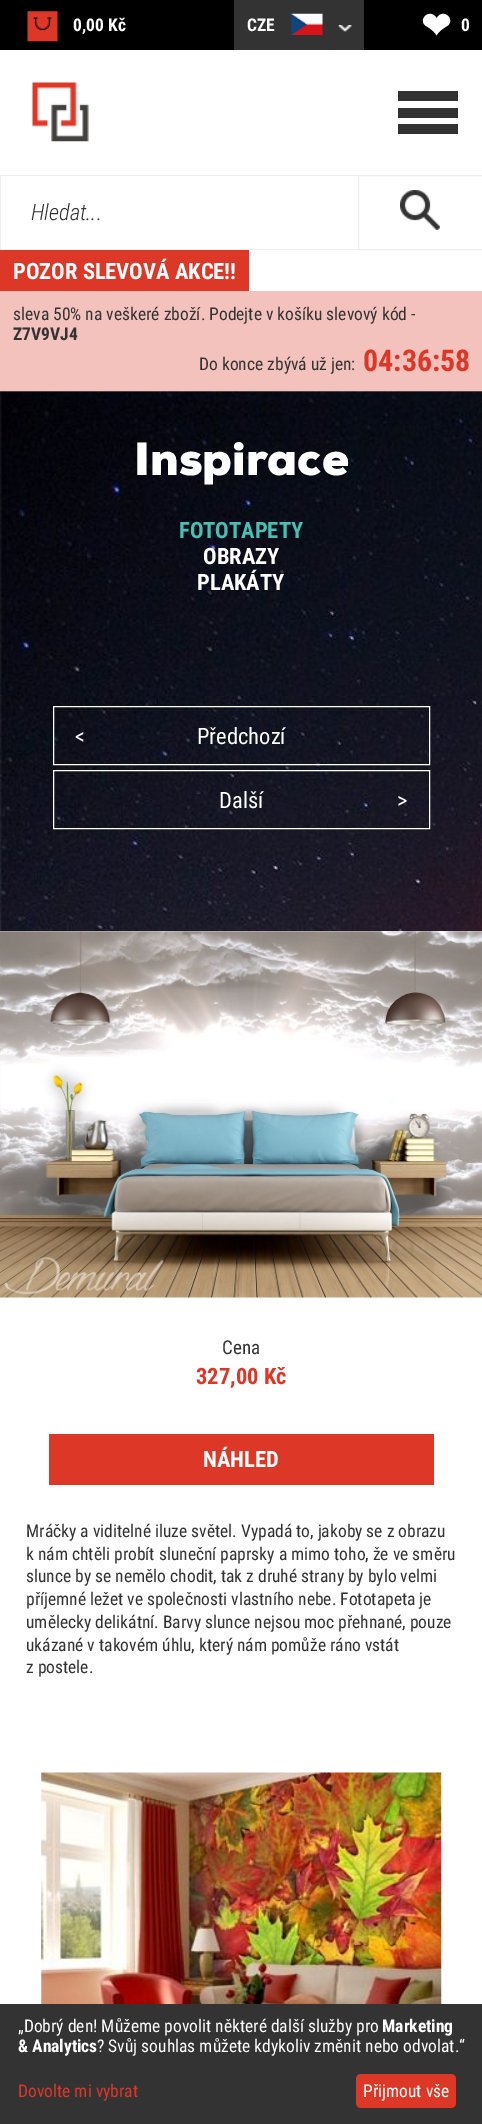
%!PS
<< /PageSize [482 2124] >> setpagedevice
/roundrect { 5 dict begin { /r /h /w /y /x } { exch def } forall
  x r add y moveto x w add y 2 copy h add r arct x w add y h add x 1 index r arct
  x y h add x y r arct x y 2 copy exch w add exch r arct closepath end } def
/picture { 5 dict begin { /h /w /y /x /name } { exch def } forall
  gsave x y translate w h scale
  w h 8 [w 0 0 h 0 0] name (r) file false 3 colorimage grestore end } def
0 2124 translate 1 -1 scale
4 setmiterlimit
1 setgray
0 0 482 2124 rectfill
0 setgray
0 0 482 50 rectfill
(img1.rgb) 27 11 31 31 picture
/RobotoCondensed-Bold [17.5 0 0 -17.5 0 0] selectfont
1 setgray
73 31 moveto (0,00 Kč) show
0.2 setgray
234 0 130 50 rectfill
1 setgray
247 31 moveto (CZE) show
(img2.rgb) 291 13 32 22 picture
(img3.rgb) 338 25 14 7 picture
/DejaVuSans-Bold [36 0 0 -36 0 0] selectfont
421 38 moveto (❤) show
/RobotoCondensed-Bold [17.5 0 0 -17.5 0 0] selectfont
461 31 moveto (0) show
(img4.rgb) 32 82 57 60 picture
0.2 setgray
398 91 60 10 rectfill
398 108 60 10 rectfill
398 124 60 10 rectfill
0.933 setgray
0 175 358 1 rectfill
0 249 358 1 rectfill
0 175 1 75 rectfill
/RobotoCondensed-LightItalic [22.5 0 0 -22.5 0 0] selectfont
0.2 setgray
31 220 moveto (Hledat...) show
0.933 setgray
358.5 175.5 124 74 rectstroke
(img5.rgb) 400 190 40 40 picture
0.867 0.22 0.153 setrgbcolor
0 250 249 41 rectfill
/RobotoCondensed-Bold [22.5 0 0 -22.5 0 0] selectfont
1 setgray
13 279 moveto (POZOR SLEVOVÁ AKCE!!) show
0.953 0.761 0.741 setrgbcolor
0 291 482 100 rectfill
/RobotoCondensed-Regular [17.5 0 0 -17.5 0 0] selectfont
0.2 setgray
13 320 moveto (sleva 50% na veškeré zboží. Podejte v košíku slevový kód -) show
/RobotoCondensed-Bold [17.5 0 0 -17.5 0 0] selectfont
13 340 moveto (Z7V9VJ4) show
/RobotoCondensed-Regular [17.5 0 0 -17.5 0 0] selectfont
199 370 moveto (Do konce zbývá už jen:) show
/RobotoCondensed-Bold [30 0 0 -30 0 0] selectfont
0.867 0.22 0.153 setrgbcolor
363 371 moveto (04:36:58) show
(img6.rgb) 0 391 482 540 picture
/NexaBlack-Black [45 0 0 -45 0 0] selectfont
1 setgray
134 475 moveto (Inspirace) show
/RobotoCondensed-Bold [22.5 0 0 -22.5 0 0] selectfont
0.278 0.749 0.702 setrgbcolor
179 538 moveto (FOTOTAPETY) show
1 setgray
203 564 moveto (OBRAZY) show
197 590 moveto (PLAKÁTY) show
53.5 706.5 376 58 rectstroke
/RobotoCondensed-Regular [22.5 0 0 -22.5 0 0] selectfont
75 744 moveto (<) show
197 744 moveto (Předchozí) show
53.5 770.5 376 58 rectstroke
219 808 moveto (Další) show
397 808 moveto (>) show
(img7.rgb) 0 931 482 367 picture
/RobotoCondensed-Regular [19 0 0 -19 0 0] selectfont
0.2 setgray
222 1354 moveto (Cena) show
/RobotoCondensed-Bold [22.5 0 0 -22.5 0 0] selectfont
0.867 0.22 0.153 setrgbcolor
196 1384 moveto (327,00 Kč) show
49 1434 385 51 rectfill
1 setgray
203 1467 moveto (NÁHLED) show
/RobotoCondensed-Regular [17.5 0 0 -17.5 0 0] selectfont
0.2 setgray
26 1537 moveto (Mráčky a viditelné iluze světel. Vypadá to, jakoby se z obrazu) show
26 1560 moveto (k nám chtěli probít sluneční paprsky a mimo toho, že ve směru) show
26 1582 moveto (slunce by se nemělo chodit, tak z druhé strany by bylo velmi) show
26 1605 moveto (příjemné ležet ve společnosti vlastního nebe. Fototapeta je) show
26 1628 moveto (umělecky delikátní. Barvy slunce nejsou moc přehnané, pouze) show
26 1651 moveto (ukázané v takovém úhlu, který nám pomůže ráno vstát) show
26 1673 moveto (z postele.) show
(img8.rgb) 41 1772 401 232 picture
0 2004 482 120 rectfill
1 setgray
18 2032 moveto („Dobrý den! Můžeme povolit některé další služby pro) show
/RobotoCondensed-Bold [17.5 0 0 -17.5 0 0] selectfont
382 2032 moveto (Marketing) show
18 2052 moveto (& Analytics) show
/RobotoCondensed-Regular [17.5 0 0 -17.5 0 0] selectfont
97 2052 moveto (? Svůj souhlas můžete kdykoliv změnit nebo odvolat.“) show
0.867 0.22 0.153 setrgbcolor
18 2097 moveto (Dovolte mi vybrat) show
356 2074 100 34 5 roundrect fill
1 setgray
363 2097 moveto (Přijmout vše) show
showpage
